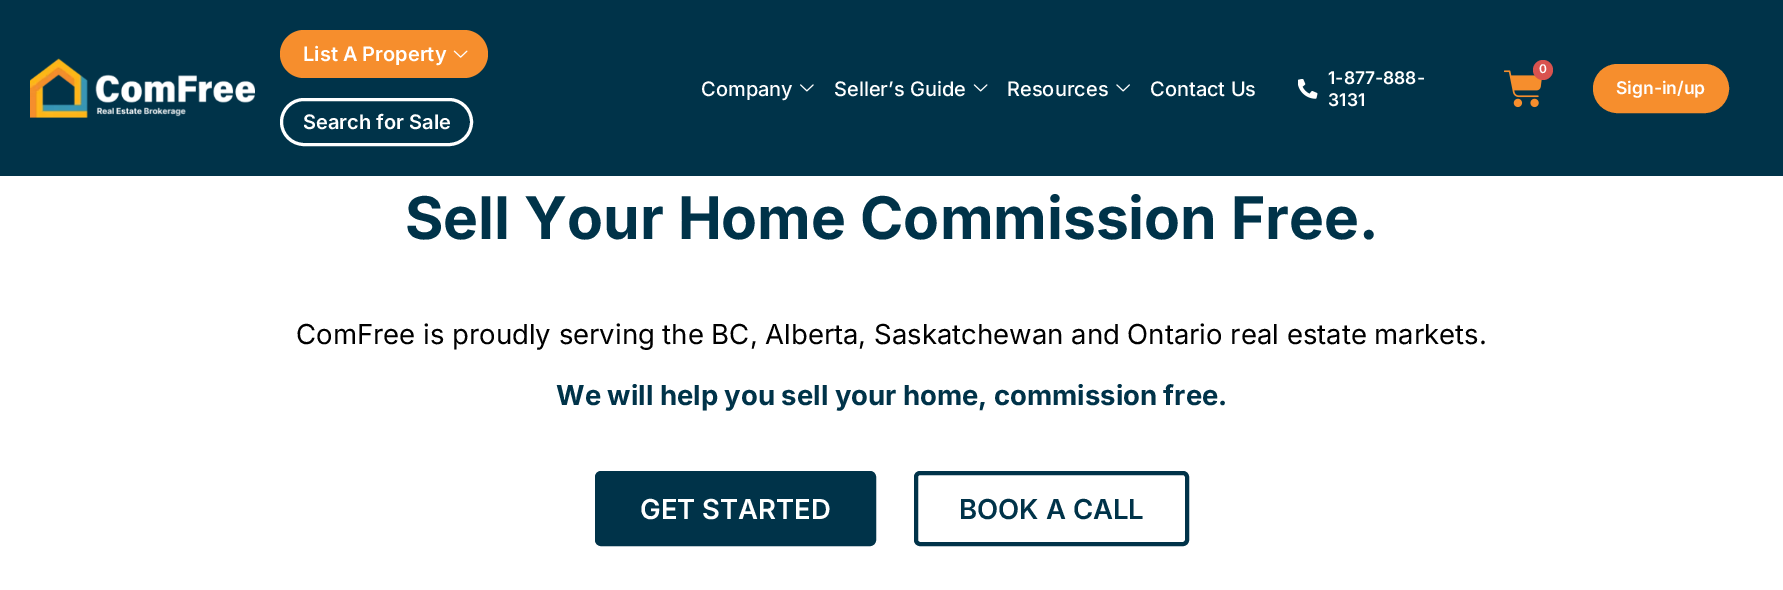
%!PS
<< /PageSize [1783 590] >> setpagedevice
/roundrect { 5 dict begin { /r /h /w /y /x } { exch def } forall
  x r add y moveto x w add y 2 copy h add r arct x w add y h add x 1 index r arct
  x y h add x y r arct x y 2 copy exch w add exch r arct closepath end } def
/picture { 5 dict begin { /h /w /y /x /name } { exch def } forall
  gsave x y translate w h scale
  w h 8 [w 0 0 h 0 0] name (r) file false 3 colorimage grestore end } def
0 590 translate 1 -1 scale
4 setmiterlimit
1 setgray
0 0 1783 590 rectfill
0 0.2 0.286 setrgbcolor
0 0 1783 176 rectfill
(img1.rgb) 30 58 225 60 picture
0.965 0.557 0.176 setrgbcolor
280 30 208 48 24 roundrect fill
/Inter-SemiBold [20 0 0 -20 0 0] selectfont
1 setgray
303 61 moveto (List A Property) show
(img2.rgb) 453 50 15 8 picture
3 setlinewidth
281.5 99.5 190 45 22.5 roundrect stroke
303 129 moveto (Search for Sale) show
(img3.rgb) 1504 70 38 38 picture
0.851 0.325 0.31 setrgbcolor
newpath 1543 70 10 0 360 arc closepath fill
/Inter-SemiBold [12 0 0 -12 0 0] selectfont
1 setgray
1539 73 moveto (0) show
/Inter-Medium [20 0 0 -20 0 0] selectfont
701 96 moveto (Company) show
(img4.rgb) 800 84 14 8 picture
834 96 moveto (Seller’s Guide) show
(img5.rgb) 973 84 15 8 picture
1007 96 moveto (Resources) show
(img6.rgb) 1116 84 14 8 picture
1150 96 moveto (Contact Us) show
(img7.rgb) 1298 79 20 20 picture
/Inter-SemiBold [17.5 0 0 -17.5 0 0] selectfont
1328 84 moveto (1-877-888-) show
1328 106 moveto (3131) show
0.965 0.557 0.176 setrgbcolor
1595 66 132 45 22.5 roundrect gsave fill grestore
4 setlinewidth
stroke
1 setgray
1616 94 moveto (Sign-in/up) show
/Inter-Bold [58.75 0 0 -58.75 0 0] selectfont
0 0.2 0.286 setrgbcolor
405 239 moveto (Sell Your Home Commission Free.) show
/Inter-Regular [27.5 0 0 -27.5 0 0] selectfont
0 setgray
296 344 moveto (ComFree is proudly serving the BC, Alberta, Saskatchewan and Ontario real estate markets.) show
/Inter-Bold [27.5 0 0 -27.5 0 0] selectfont
0 0.2 0.286 setrgbcolor
556 405 moveto (We will help you sell your home, commission free.) show
597 473 277 71 4 roundrect gsave fill grestore
stroke
/Inter-SemiBold [27.5 0 0 -27.5 0 0] selectfont
1 setgray
640 519 moveto (GET STARTED) show
0 0.2 0.286 setrgbcolor
916 473 271 71 4 roundrect stroke
959 519 moveto (BOOK A CALL) show
showpage
